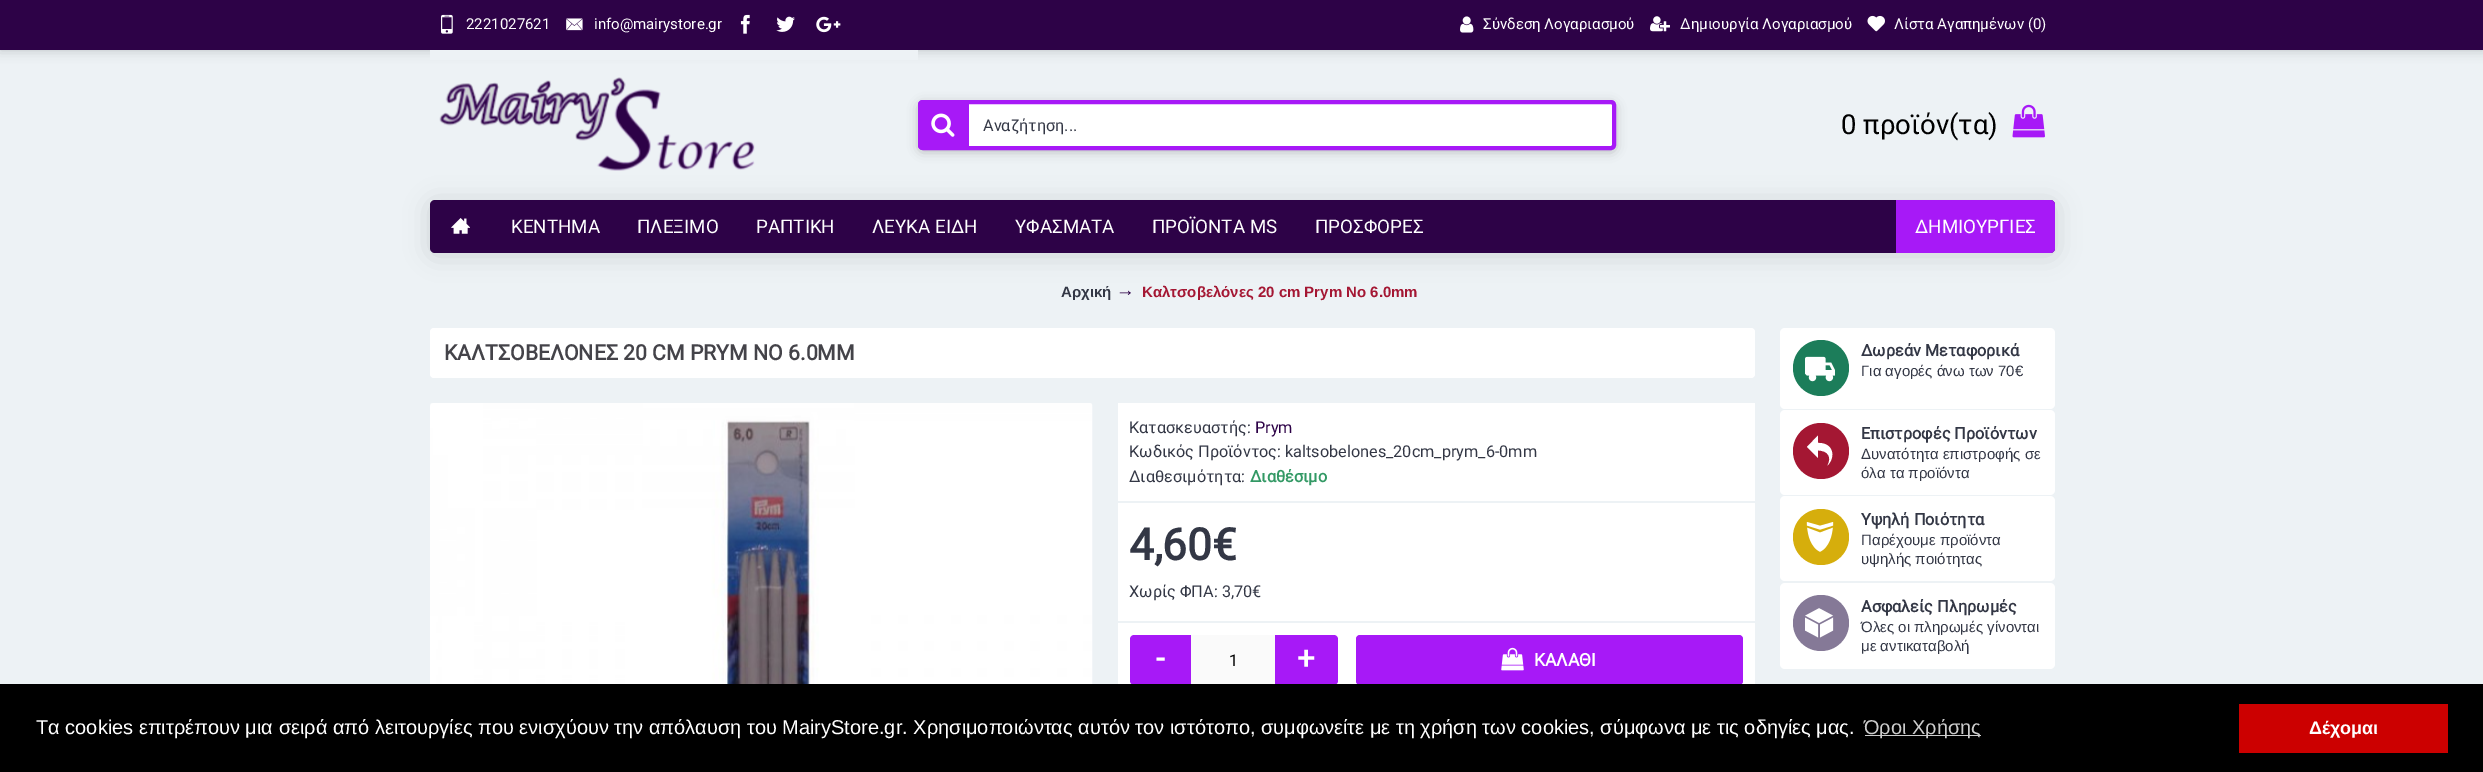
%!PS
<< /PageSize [2483 772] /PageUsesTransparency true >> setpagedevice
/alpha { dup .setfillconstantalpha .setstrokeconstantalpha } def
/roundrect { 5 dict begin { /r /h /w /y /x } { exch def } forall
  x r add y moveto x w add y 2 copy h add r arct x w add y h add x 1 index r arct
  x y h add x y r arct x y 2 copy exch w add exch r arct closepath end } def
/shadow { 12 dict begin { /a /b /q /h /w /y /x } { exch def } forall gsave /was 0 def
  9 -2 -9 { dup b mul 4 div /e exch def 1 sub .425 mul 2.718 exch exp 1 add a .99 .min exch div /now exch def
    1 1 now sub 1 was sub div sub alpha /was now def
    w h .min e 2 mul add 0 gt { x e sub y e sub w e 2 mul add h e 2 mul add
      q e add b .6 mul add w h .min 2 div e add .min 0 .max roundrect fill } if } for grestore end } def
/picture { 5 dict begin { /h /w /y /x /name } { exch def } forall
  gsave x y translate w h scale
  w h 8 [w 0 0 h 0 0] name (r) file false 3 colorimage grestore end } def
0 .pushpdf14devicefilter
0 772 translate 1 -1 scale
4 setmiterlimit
0.929 0.949 0.961 setrgbcolor
0 0 2483 772 rectfill
0 setgray
0 0 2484 50 0 6 0.2 shadow
0.176 0.008 0.278 setrgbcolor
0 0 2483 50 rectfill
(img1.rgb) 441 14 12 20 picture
/Roboto-Regular [15 0 0 -15 0 0] selectfont
1 setgray
466 29 moveto (2221027621) show
(img2.rgb) 566 18 17 13 picture
594 29 moveto (info@mairystore.gr) show
(img3.rgb) 740 14 10 20 picture
(img4.rgb) 776 16 19 16 picture
(img5.rgb) 816 16 25 17 picture
(img6.rgb) 1460 16 14 17 picture
1483 29 moveto (Σύνδεση Λογαριασμού) show
(img7.rgb) 1650 16 20 16 picture
1680 29 moveto (Δημιουργία Λογαριασμού) show
(img8.rgb) 1867 15 18 17 picture
1894 29 moveto (Λίστα Αγαπημένων \(0\)) show
0.929 0.949 0.961 setrgbcolor
430 50 488 10 rectfill
(img9.rgb) 439 77 316 94 picture
0 setgray
920 105 694 45 2.5 6 0.3 shadow
1 setgray
920 102 694 46 3 roundrect gsave fill grestore
0.655 0.098 0.969 setrgbcolor
4 setlinewidth
stroke
newpath 923 100 moveto 969 100 lineto 969 150 lineto 923 150 lineto 920 150 918 148 918 145 curveto 918 105 lineto 918 102 920 100 923 100 curveto closepath fill
(img10.rgb) 931 113 24 24 picture
/Roboto-Regular [16.25 0 0 -16.25 0 0] selectfont
0.2 0.216 0.271 setrgbcolor
983 131 moveto (Αναζήτηση...) show
/Roboto-Regular [27.5 0 0 -27.5 0 0] selectfont
0 setgray
1841 134 moveto (0 προϊόν\(τα\)) show
(img11.rgb) 2012 104 33 34 picture
430 203 1625 52 5 12.5 0.14 shadow
0.176 0.008 0.278 setrgbcolor
430 200 1625 53 5 roundrect fill
(img12.rgb) 451 218 19 16 picture
/Roboto-Regular [18.75 0 0 -18.75 0 0] selectfont
1 setgray
511 233 moveto (ΚΕΝΤΗΜΑ) show
637 233 moveto (ΠΛΕΞΙΜΟ) show
756 233 moveto (ΡΑΠΤΙΚΗ) show
872 233 moveto (ΛΕΥΚΑ ΕΙΔΗ) show
1015 233 moveto (ΥΦΑΣΜΑΤΑ) show
1152 233 moveto (ΠΡΟΪΟΝΤΑ MS) show
1315 233 moveto (ΠΡΟΣΦΟΡΕΣ) show
0.655 0.098 0.969 setrgbcolor
newpath 1896 200 moveto 2050 200 lineto 2053 200 2055 202 2055 205 curveto 2055 248 lineto 2055 251 2053 253 2050 253 curveto 1896 253 lineto closepath fill
1 setgray
1915 233 moveto (ΔΗΜΙΟΥΡΓΙΕΣ) show
/LiberationSans-Bold [15 0 0 -15 0 0] selectfont
0.2 0.216 0.271 setrgbcolor
1061 297 moveto (Αρχική) show
/LiberationSerif-Regular [18.75 0 0 -18.75 0 0] selectfont
0.176 0.008 0.278 setrgbcolor
1116 296 moveto (→) show
/LiberationSans-Bold [15 0 0 -15 0 0] selectfont
0.643 0.09 0.2 setrgbcolor
1142 297 moveto (Καλτσοβελόνες 20 cm Prym No 6.0mm) show
1 setgray
430 328 1325 50 4 roundrect fill
/Roboto-Bold [21.25 0 0 -21.25 0 0] selectfont
0.267 0.263 0.286 setrgbcolor
444 360 moveto (ΚΑΛΤΣΟΒΕΛΟΝΕΣ 20 CM PRYM NO 6.0MM) show
(img13.rgb) 430 403 663 281 picture
1 setgray
1118 403 637 98 rectfill
/Roboto-Regular [16.25 0 0 -16.25 0 0] selectfont
0.2 0.216 0.271 setrgbcolor
1129 433 moveto (Κατασκευαστής:) show
0.176 0.008 0.278 setrgbcolor
1255 433 moveto (Prym) show
0.2 0.216 0.271 setrgbcolor
1129 457 moveto (Κωδικός Προϊόντος: kaltsobelones_20cm_prym_6-0mm) show
1129 482 moveto (Διαθεσιμότητα:) show
/Roboto-Bold [16.25 0 0 -16.25 0 0] selectfont
0.2 0.6 0.396 setrgbcolor
1250 482 moveto (Διαθέσιμο) show
1 setgray
1118 503 637 118 rectfill
/Roboto-Bold [44 0 0 -44 0 0] selectfont
0.2 0.216 0.271 setrgbcolor
1129 560 moveto (4,60€) show
/Roboto-Regular [16.25 0 0 -16.25 0 0] selectfont
1129 597 moveto (Χωρίς ΦΠΑ: 3,70€) show
1 setgray
1118 623 637 61 rectfill
0.655 0.098 0.969 setrgbcolor
newpath 1134 635 moveto 1191 635 lineto 1191 685 lineto 1134 685 lineto 1132 685 1130 683 1130 681 curveto 1130 639 lineto 1130 637 1132 635 1134 635 curveto closepath fill
/Roboto-Bold [31 0 0 -31 0 0] selectfont
1 setgray
1156 669 moveto (-) show
0.98 setgray
1191 635 84 49 rectfill
/Roboto-Regular [16.25 0 0 -16.25 0 0] selectfont
0 setgray
1229 666 moveto (1) show
0.655 0.098 0.969 setrgbcolor
newpath 1275 635 moveto 1334 635 lineto 1336 635 1338 637 1338 639 curveto 1338 681 lineto 1338 683 1336 685 1334 685 curveto 1275 685 lineto closepath fill
/Roboto-Bold [31 0 0 -31 0 0] selectfont
1 setgray
1297 669 moveto (+) show
0.655 0.098 0.969 setrgbcolor
1356 635 387 50 4 roundrect fill
(img14.rgb) 1501 647 23 24 picture
/Roboto-Bold [17.5 0 0 -17.5 0 0] selectfont
1 setgray
1534 666 moveto (ΚΑΛΑΘΙ) show
1780 328 275 81 5 roundrect fill
0.11 0.49 0.353 setrgbcolor
newpath 1821 368 28 0 360 arc closepath fill
(img15.rgb) 1805 356 30 26 picture
/Roboto-Bold [16.25 0 0 -16.25 0 0] selectfont
0.2 0.216 0.271 setrgbcolor
1861 356 moveto (Δωρεάν Μεταφορικά) show
/LiberationSans-Regular [15 0 0 -15 0 0] selectfont
1861 376 moveto (Για αγορές άνω των 70€) show
1 setgray
1780 410 275 85 5 roundrect fill
0.643 0.09 0.2 setrgbcolor
newpath 1821 451 28 0 360 arc closepath fill
1 setgray
newpath 1827.5 465.5 moveto 1832 457 1828 450.5 1818 450.5 curveto 1818 458 lineto 1807 447 lineto 1818 435.5 lineto 1818 443 lineto 1832.5 442.5 1836.5 456 1827.5 465.5 curveto closepath fill
/Roboto-Bold [16.25 0 0 -16.25 0 0] selectfont
0.2 0.216 0.271 setrgbcolor
1861 439 moveto (Επιστροφές Προϊόντων) show
/LiberationSans-Regular [15 0 0 -15 0 0] selectfont
1861 459 moveto (Δυνατότητα επιστροφής σε) show
1861 478 moveto (όλα τα προϊόντα) show
1 setgray
1780 496 275 85 5 roundrect fill
0.839 0.682 0.047 setrgbcolor
newpath 1821 537 28 0 360 arc closepath fill
(img16.rgb) 1806 522 28 30 picture
/Roboto-Bold [16.25 0 0 -16.25 0 0] selectfont
0.2 0.216 0.271 setrgbcolor
1861 525 moveto (Υψηλή Ποιότητα) show
/LiberationSans-Regular [15 0 0 -15 0 0] selectfont
1861 545 moveto (Παρέχουμε προϊόντα) show
1861 564 moveto (υψηλής ποιότητας) show
1 setgray
1780 583 275 86 5 roundrect fill
0.522 0.475 0.592 setrgbcolor
newpath 1821 623 28 0 360 arc closepath fill
(img17.rgb) 1805 608 29 30 picture
/Roboto-Bold [16.25 0 0 -16.25 0 0] selectfont
0.2 0.216 0.271 setrgbcolor
1861 612 moveto (Ασφαλείς Πληρωμές) show
/LiberationSans-Regular [15 0 0 -15 0 0] selectfont
1861 632 moveto (Όλες οι πληρωμές γίνονται) show
1861 651 moveto (με αντικαταβολή) show
0 setgray
0 684 2483 88 rectfill
/LiberationSans-Regular [20 0 0 -20 0 0] selectfont
1 setgray
36 734 moveto (Τα cookies επιτρέπουν μια σειρά από λειτουργίες που ενισχύουν την απόλαυση του MairyStore.gr. Χρησιμοποιώντας αυτόν τον ιστότοπο, συμφωνείτε με τη χρήση των cookies, σύμφωνα με τις οδηγίες μας.) show
0.8 setgray
1865 735 116 1 rectfill
1864 734 moveto (Όροι Χρήσης) show
0.8 0 0 setrgbcolor
2239 704 209 49 rectfill
/LiberationSans-Bold [18 0 0 -18 0 0] selectfont
1 setgray
2309 734 moveto (Δέχομαι) show
.poppdf14devicefilter showpage
